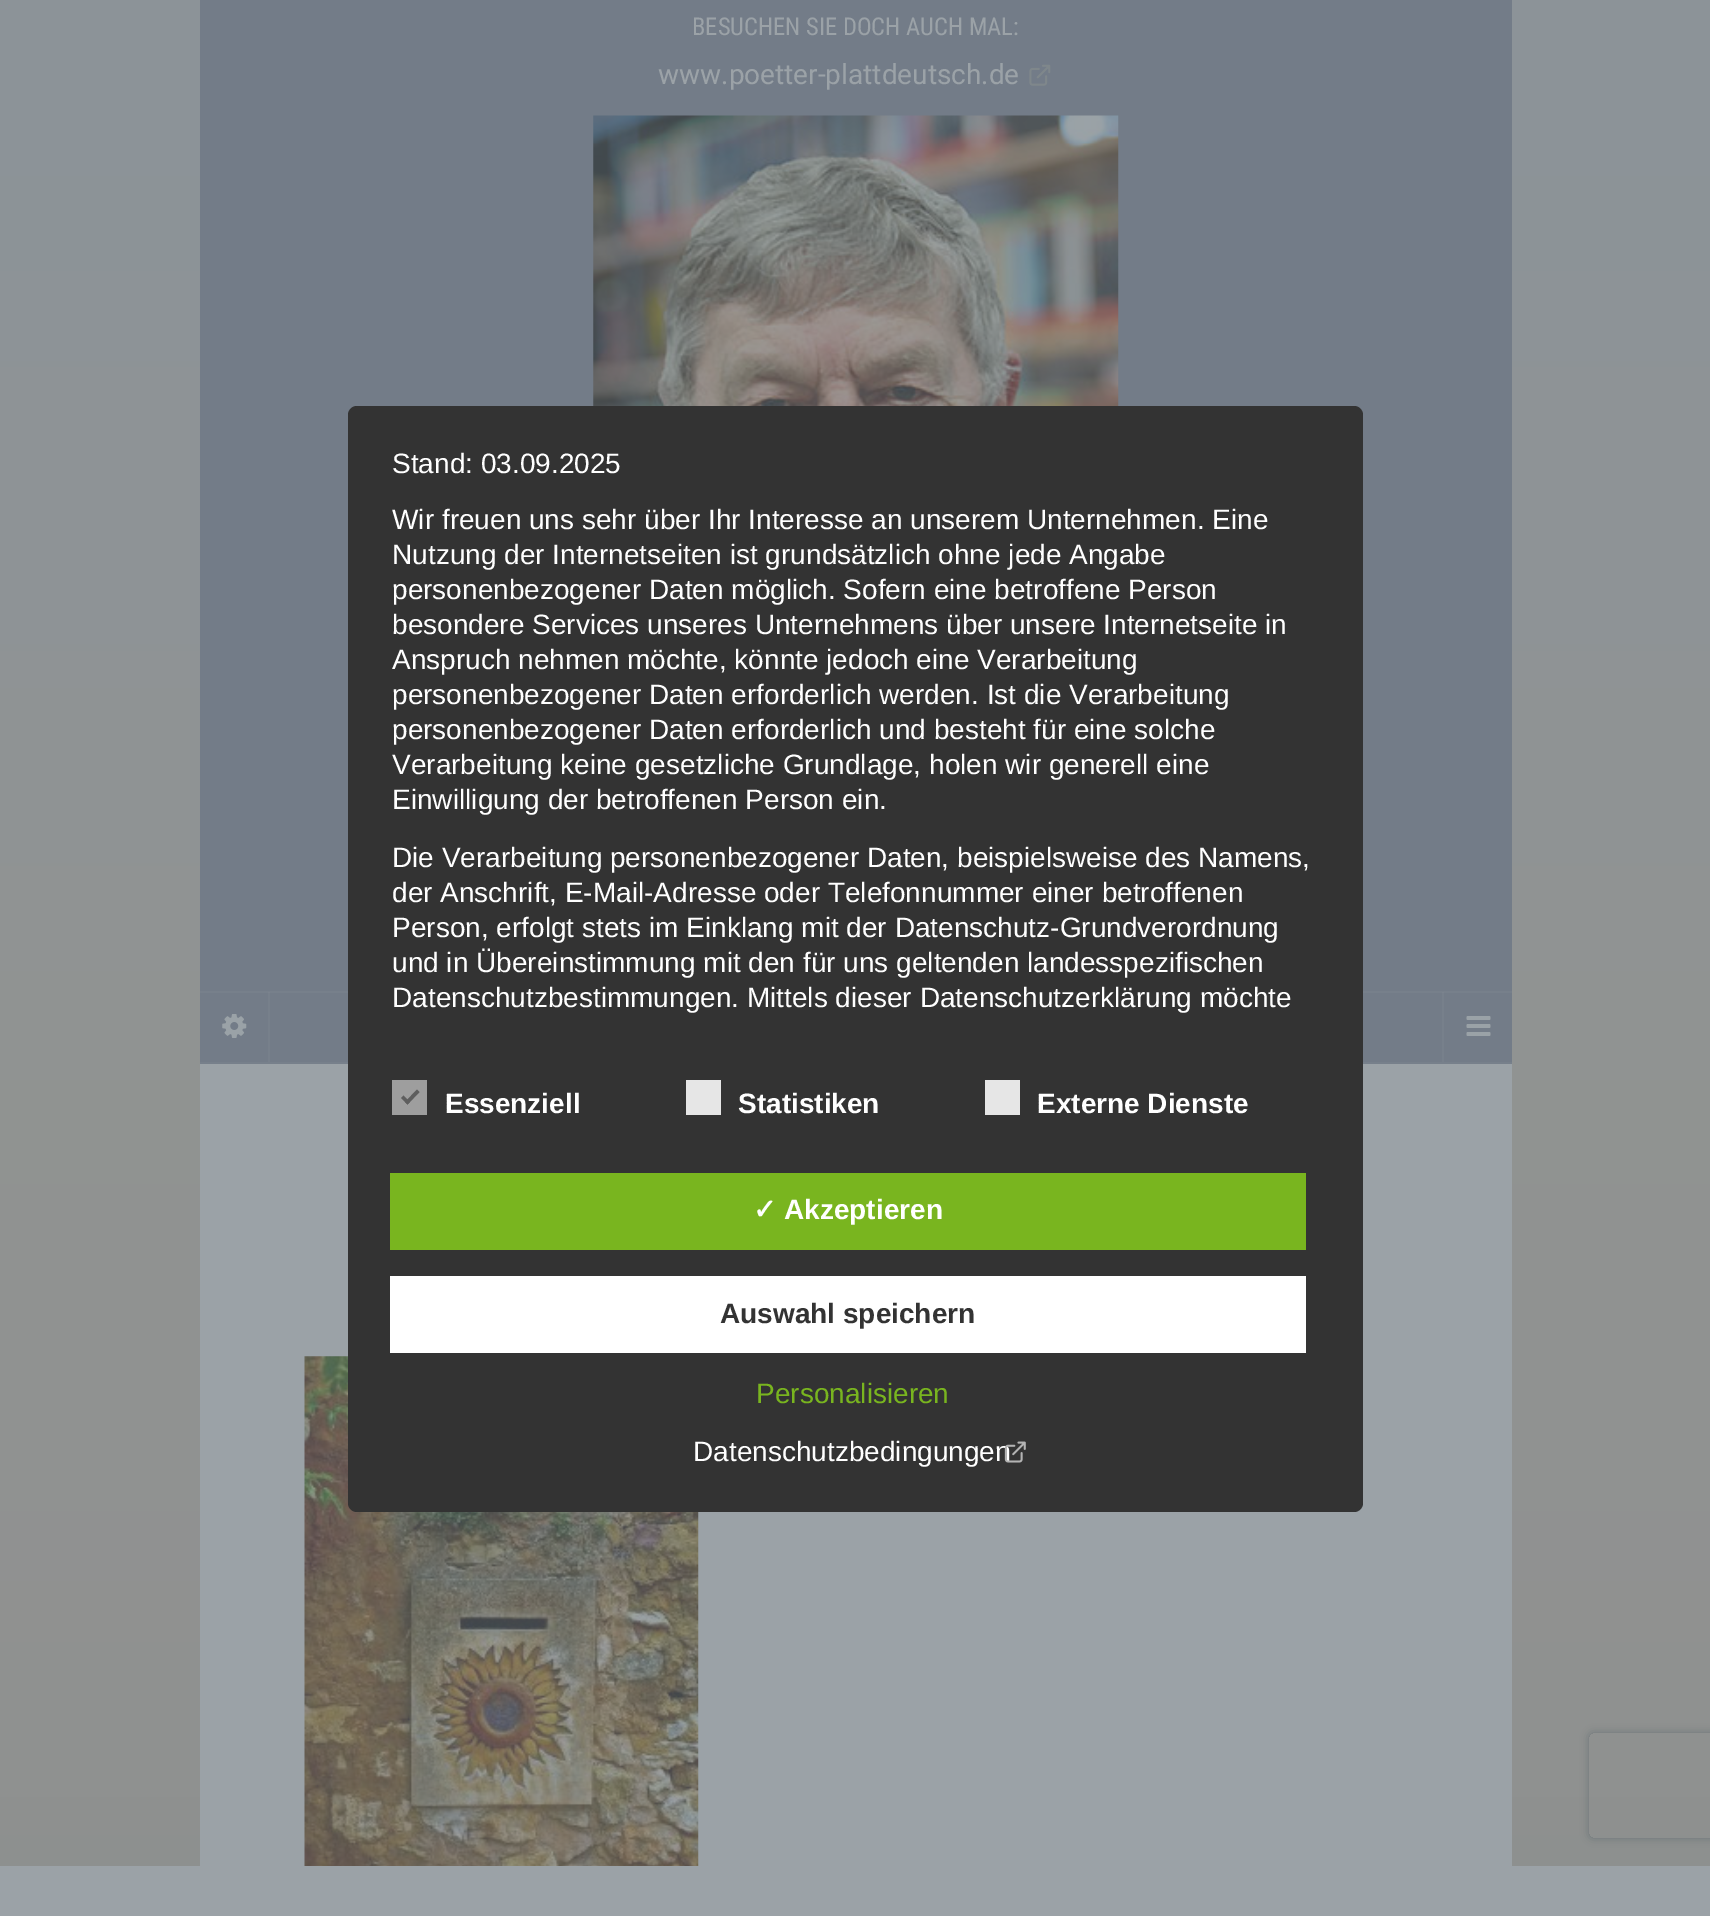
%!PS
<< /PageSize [1710 1916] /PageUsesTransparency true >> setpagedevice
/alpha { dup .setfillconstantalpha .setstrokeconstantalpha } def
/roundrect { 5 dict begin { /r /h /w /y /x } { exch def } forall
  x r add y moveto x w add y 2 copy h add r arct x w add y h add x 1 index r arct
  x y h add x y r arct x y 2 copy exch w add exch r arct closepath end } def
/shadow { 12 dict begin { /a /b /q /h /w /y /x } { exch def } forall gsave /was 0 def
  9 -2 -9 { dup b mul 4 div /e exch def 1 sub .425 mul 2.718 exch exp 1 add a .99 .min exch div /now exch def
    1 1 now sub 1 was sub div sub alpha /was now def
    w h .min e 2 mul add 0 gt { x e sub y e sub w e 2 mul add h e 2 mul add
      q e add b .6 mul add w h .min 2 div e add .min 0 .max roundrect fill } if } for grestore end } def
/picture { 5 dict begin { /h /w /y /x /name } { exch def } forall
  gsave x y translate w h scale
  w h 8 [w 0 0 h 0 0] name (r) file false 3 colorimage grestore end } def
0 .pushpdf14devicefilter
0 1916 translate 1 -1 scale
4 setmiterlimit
1 setgray
0 0 1710 1916 rectfill
(img1.rgb) 0 0 1710 1866 picture
0.451 0.486 0.533 setrgbcolor
200 0 1312 1062 rectfill
0.467 0.502 0.545 setrgbcolor
200 1062 1312 2 rectfill
/RobotoCondensed-Regular [24.5 0 0 -24.5 0 0] selectfont
0.608 0.635 0.655 setrgbcolor
692 35 moveto (BESUCHEN SIE DOCH AUCH MAL:) show
/Roboto-Regular [28 0 0 -28 0 0] selectfont
658 84 moveto (www.poetter-plattdeutsch.de) show
(img2.rgb) 1029 64 22 22 picture
0.467 0.502 0.545 setrgbcolor
200 991 1312 2 rectfill
(img3.rgb) 593 115 526 291 picture
0.1 alpha
0.608 0.635 0.655 setrgbcolor
268 992 2 70 rectfill
1 alpha
(img4.rgb) 222 1014 25 24 picture
0.1 alpha
1442 992 2 70 rectfill
1 alpha
(img5.rgb) 1466 1016 25 20 picture
200 1064 1312 802 rectfill
(img6.rgb) 304 1356 395 510 picture
0.2 setgray
348 406 1015 1106 9 roundrect fill
/LiberationSans-Regular [28 0 0 -28 0 0] selectfont
1 setgray
392 473 moveto (Stand: 03.09.2025) show
392 529 moveto (Wir freuen uns sehr über Ihr Interesse an unserem Unternehmen. Eine) show
392 564 moveto (Nutzung der Internetseiten ist grundsätzlich ohne jede Angabe) show
392 599 moveto (personenbezogener Daten möglich. Sofern eine betroffene Person) show
392 634 moveto (besondere Services unseres Unternehmens über unsere Internetseite in) show
392 669 moveto (Anspruch nehmen möchte, könnte jedoch eine Verarbeitung) show
392 704 moveto (personenbezogener Daten erforderlich werden. Ist die Verarbeitung) show
392 739 moveto (personenbezogener Daten erforderlich und besteht für eine solche) show
392 774 moveto (Verarbeitung keine gesetzliche Grundlage, holen wir generell eine) show
392 809 moveto (Einwilligung der betroffenen Person ein.) show
392 867 moveto (Die Verarbeitung personenbezogener Daten, beispielsweise des Namens,) show
392 902 moveto (der Anschrift, E-Mail-Adresse oder Telefonnummer einer betroffenen) show
392 937 moveto (Person, erfolgt stets im Einklang mit der Datenschutz-Grundverordnung) show
392 972 moveto (und in Übereinstimmung mit den für uns geltenden landesspezifischen) show
392 1007 moveto (Datenschutzbestimmungen. Mittels dieser Datenschutzerklärung möchte) show
0.62 setgray
392 1080 35 35 rectfill
0.369 setgray
newpath 417 1089.5 moveto 419.5 1092 lineto 407.5 1104.5 lineto 405 1102 lineto closepath fill
newpath 403.5 1095.5 moveto 410 1102 lineto 407.5 1104.5 lineto 401 1098 lineto closepath fill
/LiberationSans-Bold [28 0 0 -28 0 0] selectfont
1 setgray
445 1113 moveto (Essenziell) show
0.902 setgray
686 1080 35 35 rectfill
1 setgray
738 1113 moveto (Statistiken) show
0.902 setgray
985 1080 35 35 rectfill
1 setgray
1037 1113 moveto (Externe Dienste) show
0.475 0.71 0.122 setrgbcolor
390 1173 916 77 rectfill
/DejaVuSans-Bold [28 0 0 -28 0 0] selectfont
1 setgray
753 1219 moveto (✓) show
/LiberationSans-Bold [28 0 0 -28 0 0] selectfont
784 1219 moveto (Akzeptieren) show
390 1276 916 77 rectfill
0.2 setgray
720 1323 moveto (Auswahl speichern) show
/LiberationSans-Regular [28 0 0 -28 0 0] selectfont
0.475 0.71 0.122 setrgbcolor
756 1403 moveto (Personalisieren) show
1 setgray
693 1461 moveto (Datenschutzbedingungen) show
(img7.rgb) 1004 1441 22 22 picture
gsave
newpath 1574 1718 moveto 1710 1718 lineto 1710 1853 lineto 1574 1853 lineto closepath 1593 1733 moveto 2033 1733 lineto 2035 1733 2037 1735 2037 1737 curveto 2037 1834 lineto 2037 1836 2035 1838 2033 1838 curveto 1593 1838 lineto 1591 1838 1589 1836 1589 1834 curveto 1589 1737 lineto 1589 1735 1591 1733 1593 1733 curveto closepath eoclip newpath
0.427 0.455 0.475 setrgbcolor
1589 1733 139 105 4 4.5 1 shadow
grestore
0.608 0.635 0.655 setrgbcolor
0 1866 1710 50 rectfill
.poppdf14devicefilter showpage
